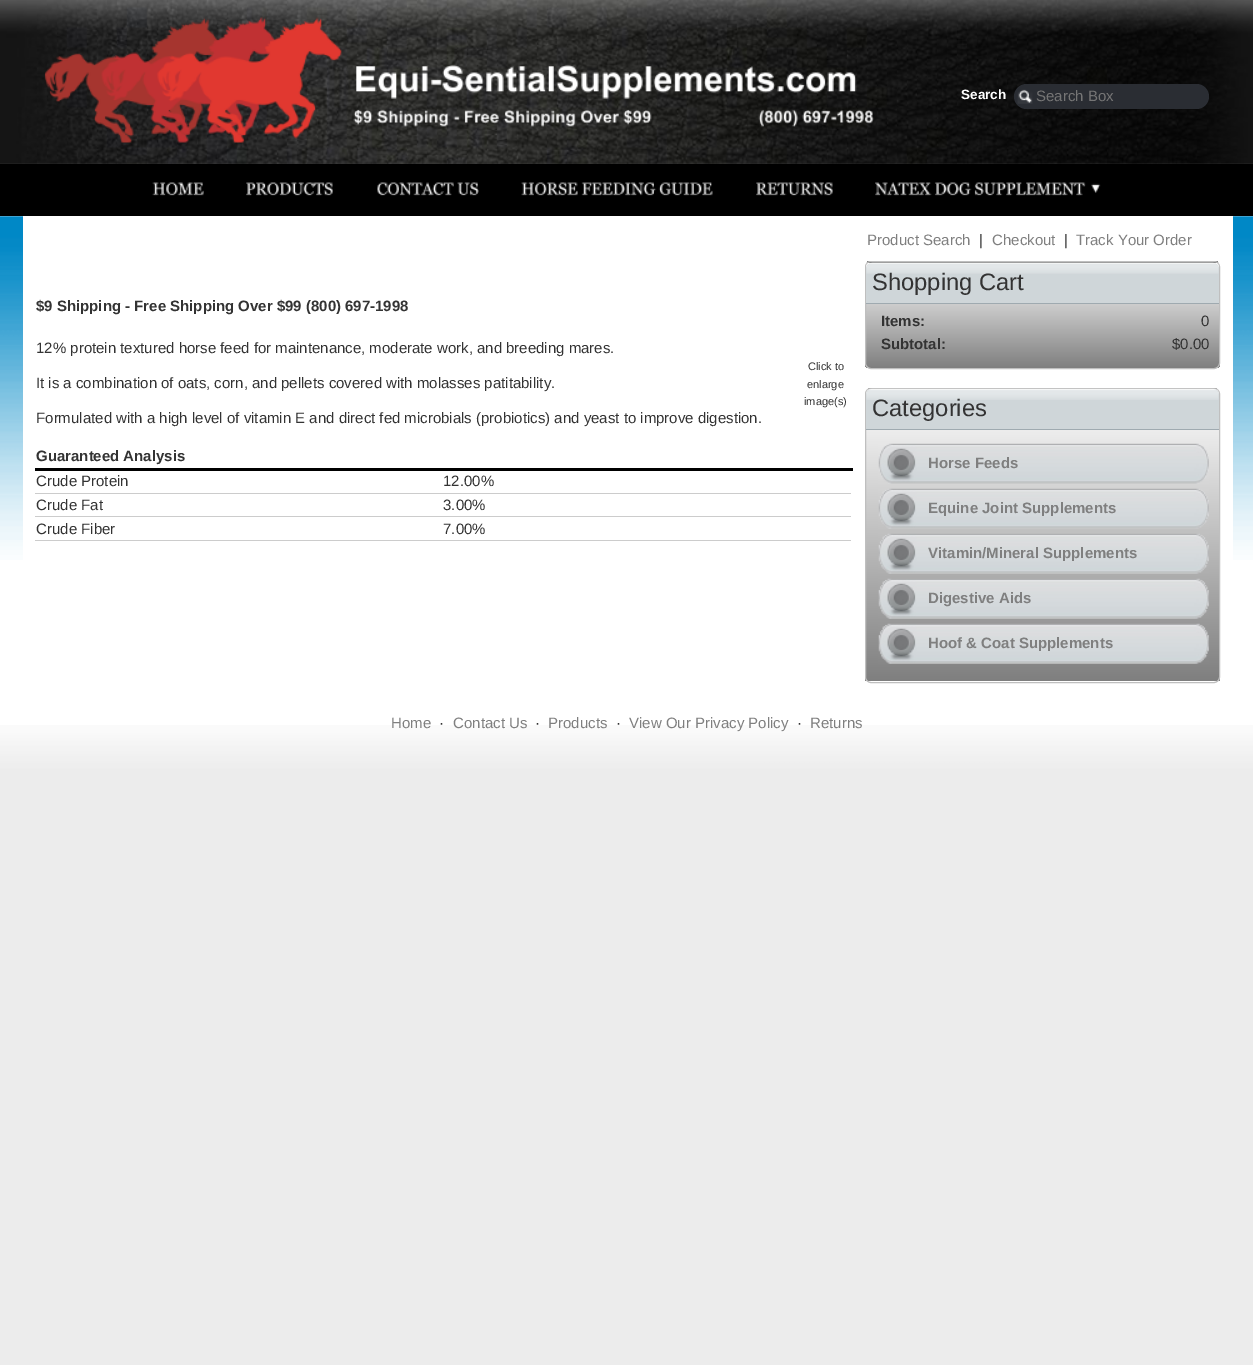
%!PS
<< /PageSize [1253 1365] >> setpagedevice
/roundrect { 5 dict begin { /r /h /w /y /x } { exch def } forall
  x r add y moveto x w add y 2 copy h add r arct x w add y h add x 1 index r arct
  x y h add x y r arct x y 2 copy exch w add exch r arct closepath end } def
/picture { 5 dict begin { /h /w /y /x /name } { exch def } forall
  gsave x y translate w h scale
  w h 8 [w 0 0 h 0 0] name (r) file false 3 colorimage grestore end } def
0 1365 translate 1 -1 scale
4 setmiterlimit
0.925 setgray
0 0 1253 1365 rectfill
1 setgray
0 163 1253 562 rectfill
(img1.rgb) 0 163 1253 1 picture
(img2.rgb) 0 0 1253 164 picture
(img3.rgb) 44 17 830 126 picture
/LiberationSans-Bold [13.5 0 0 -13.5 0 0] selectfont
961 99 moveto (Search) show
0.165 0.176 0.2 setrgbcolor
1014 84 195 25 12.5 roundrect fill
(img4.rgb) 1017 89 16 15 picture
/LiberationSans-Regular [15 0 0 -15 0 0] selectfont
0.459 setgray
1036 101 moveto (Search Box) show
0 setgray
0 164 1253 52 rectfill
(img5.rgb) 152 182 52 14 picture
(img6.rgb) 246 182 87 14 picture
(img7.rgb) 377 182 102 14 picture
(img8.rgb) 521 182 192 14 picture
(img9.rgb) 756 182 77 14 picture
(img10.rgb) 875 182 226 14 picture
(img11.rgb) 0 216 1253 344 picture
1 setgray
23 216 1210 344 rectfill
/LiberationSans-Bold [15 0 0 -15 0 0] selectfont
0.2 setgray
36 311 moveto ($9 Shipping - Free Shipping Over $99 \(800\) 697-1998) show
/LiberationSans-Regular [15 0 0 -15 0 0] selectfont
36 353 moveto (12% protein textured horse feed for maintenance, moderate work, and breeding mares.) show
36 388 moveto (It is a combination of oats, corn, and pellets covered with molasses patitability.) show
/LiberationSans-Regular [11 0 0 -11 0 0] selectfont
808 370 moveto (Click to) show
807 388 moveto (enlarge) show
804 405 moveto (image\(s\)) show
/LiberationSans-Regular [15 0 0 -15 0 0] selectfont
36 423 moveto (Formulated with a high level of vitamin E and direct fed microbials \(probiotics\) and yeast to improve digestion.) show
0 setgray
35 468 818 3 rectfill
/LiberationSans-Bold [15 0 0 -15 0 0] selectfont
0.2 setgray
36 461 moveto (Guaranteed Analysis) show
0.8 setgray
35 493 816 1 rectfill
/LiberationSans-Regular [15 0 0 -15 0 0] selectfont
0.2 setgray
36 486 moveto (Crude Protein) show
443 486 moveto (12.00%) show
0.8 setgray
35 516 816 1 rectfill
0.2 setgray
36 510 moveto (Crude Fat) show
443 510 moveto (3.00%) show
0.8 setgray
35 540 816 1 rectfill
0.2 setgray
36 534 moveto (Crude Fiber) show
443 534 moveto (7.00%) show
0.498 setgray
867 245 moveto (Product Search) show
0.2 setgray
979 245 moveto (|) show
0.498 setgray
992 245 moveto (Checkout) show
0.2 setgray
1064 245 moveto (|) show
0.498 setgray
1076 245 moveto (Track Your Order) show
gsave
865 261 355 108 6 roundrect clip newpath
gsave newpath 865 261 moveto 1220 261 lineto 1220 263 lineto 865 263 lineto closepath clip newpath
<< /ShadingType 2 /ColorSpace /DeviceRGB /Coords [1043 157 1043 263] /Extend [true true] /Function << /FunctionType 2 /Domain [0 1] /C0 [1 1 1] /C1 [0.498 0.498 0.498] /N 1 >> >> shfill grestore
gsave newpath 865 263 moveto 1220 263 lineto 1220 368 lineto 865 368 lineto closepath clip newpath
<< /ShadingType 2 /ColorSpace /DeviceRGB /Coords [1043 263 1043 368] /Extend [true true] /Function << /FunctionType 2 /Domain [0 1] /C0 [1 1 1] /C1 [0.498 0.498 0.498] /N 1 >> >> shfill grestore
grestore
0.749 setgray
865.5 261.5 354 107 5.5 roundrect stroke
0.812 0.839 0.851 setrgbcolor
newpath 872 263 moveto 1213 263 lineto 1216.5 263 1219 265.5 1219 269 curveto 1219 304 lineto 866 304 lineto 866 269 lineto 866 265.5 868.5 263 872 263 curveto closepath fill
(img12.rgb) 866 262 353 12 picture
0.624 0.667 0.69 setrgbcolor
866 303 353 1 rectfill
/LiberationSans-Regular [23.75 0 0 -23.75 0 0] selectfont
0.2 setgray
872 290 moveto (Shopping Cart) show
/LiberationSans-Bold [15 0 0 -15 0 0] selectfont
881 326 moveto (Items:) show
/LiberationSans-Regular [15 0 0 -15 0 0] selectfont
1201 326 moveto (0) show
/LiberationSans-Bold [15 0 0 -15 0 0] selectfont
881 349 moveto (Subtotal:) show
/LiberationSans-Regular [15 0 0 -15 0 0] selectfont
1172 349 moveto ($0.00) show
gsave
865 388 355 295 6 roundrect clip newpath
gsave newpath 865 389 moveto 1220 389 lineto 1220 681 lineto 865 681 lineto closepath clip newpath
<< /ShadingType 2 /ColorSpace /DeviceRGB /Coords [1043 389 1043 681] /Extend [true true] /Function << /FunctionType 2 /Domain [0 1] /C0 [1 1 1] /C1 [0.498 0.498 0.498] /N 1 >> >> shfill grestore
grestore
0.749 setgray
865.5 388.5 354 294 5.5 roundrect stroke
0.812 0.839 0.851 setrgbcolor
newpath 872 389 moveto 1213 389 lineto 1216.5 389 1219 391.5 1219 395 curveto 1219 430 lineto 866 430 lineto 866 395 lineto 866 391.5 868.5 389 872 389 curveto closepath fill
(img13.rgb) 866 388 353 12 picture
0.624 0.667 0.69 setrgbcolor
866 429 353 1 rectfill
/LiberationSans-Regular [23.75 0 0 -23.75 0 0] selectfont
0.2 setgray
872 416 moveto (Categories) show
(img14.rgb) 878 443 331 41 picture
/LiberationSans-Bold [15 0 0 -15 0 0] selectfont
0.498 setgray
928 468 moveto (Horse Feeds) show
(img15.rgb) 878 488 331 41 picture
928 513 moveto (Equine Joint Supplements) show
(img16.rgb) 878 533 331 41 picture
928 558 moveto (Vitamin/Mineral Supplements) show
(img17.rgb) 878 578 331 41 picture
928 603 moveto (Digestive Aids) show
(img18.rgb) 878 623 331 41 picture
928 648 moveto (Hoof & Coat Supplements) show
(img19.rgb) 0 725 1253 45 picture
/LiberationSans-Regular [15 0 0 -15 0 0] selectfont
391 728 moveto (Home) show
0.2 setgray
439 728 moveto (·) show
0.498 setgray
453 728 moveto (Contact Us) show
0.2 setgray
535 728 moveto (·) show
0.498 setgray
548 728 moveto (Products) show
0.2 setgray
616 728 moveto (·) show
0.498 setgray
629 728 moveto (View Our Privacy Policy) show
0.2 setgray
797 728 moveto (·) show
0.498 setgray
810 728 moveto (Returns) show
showpage
